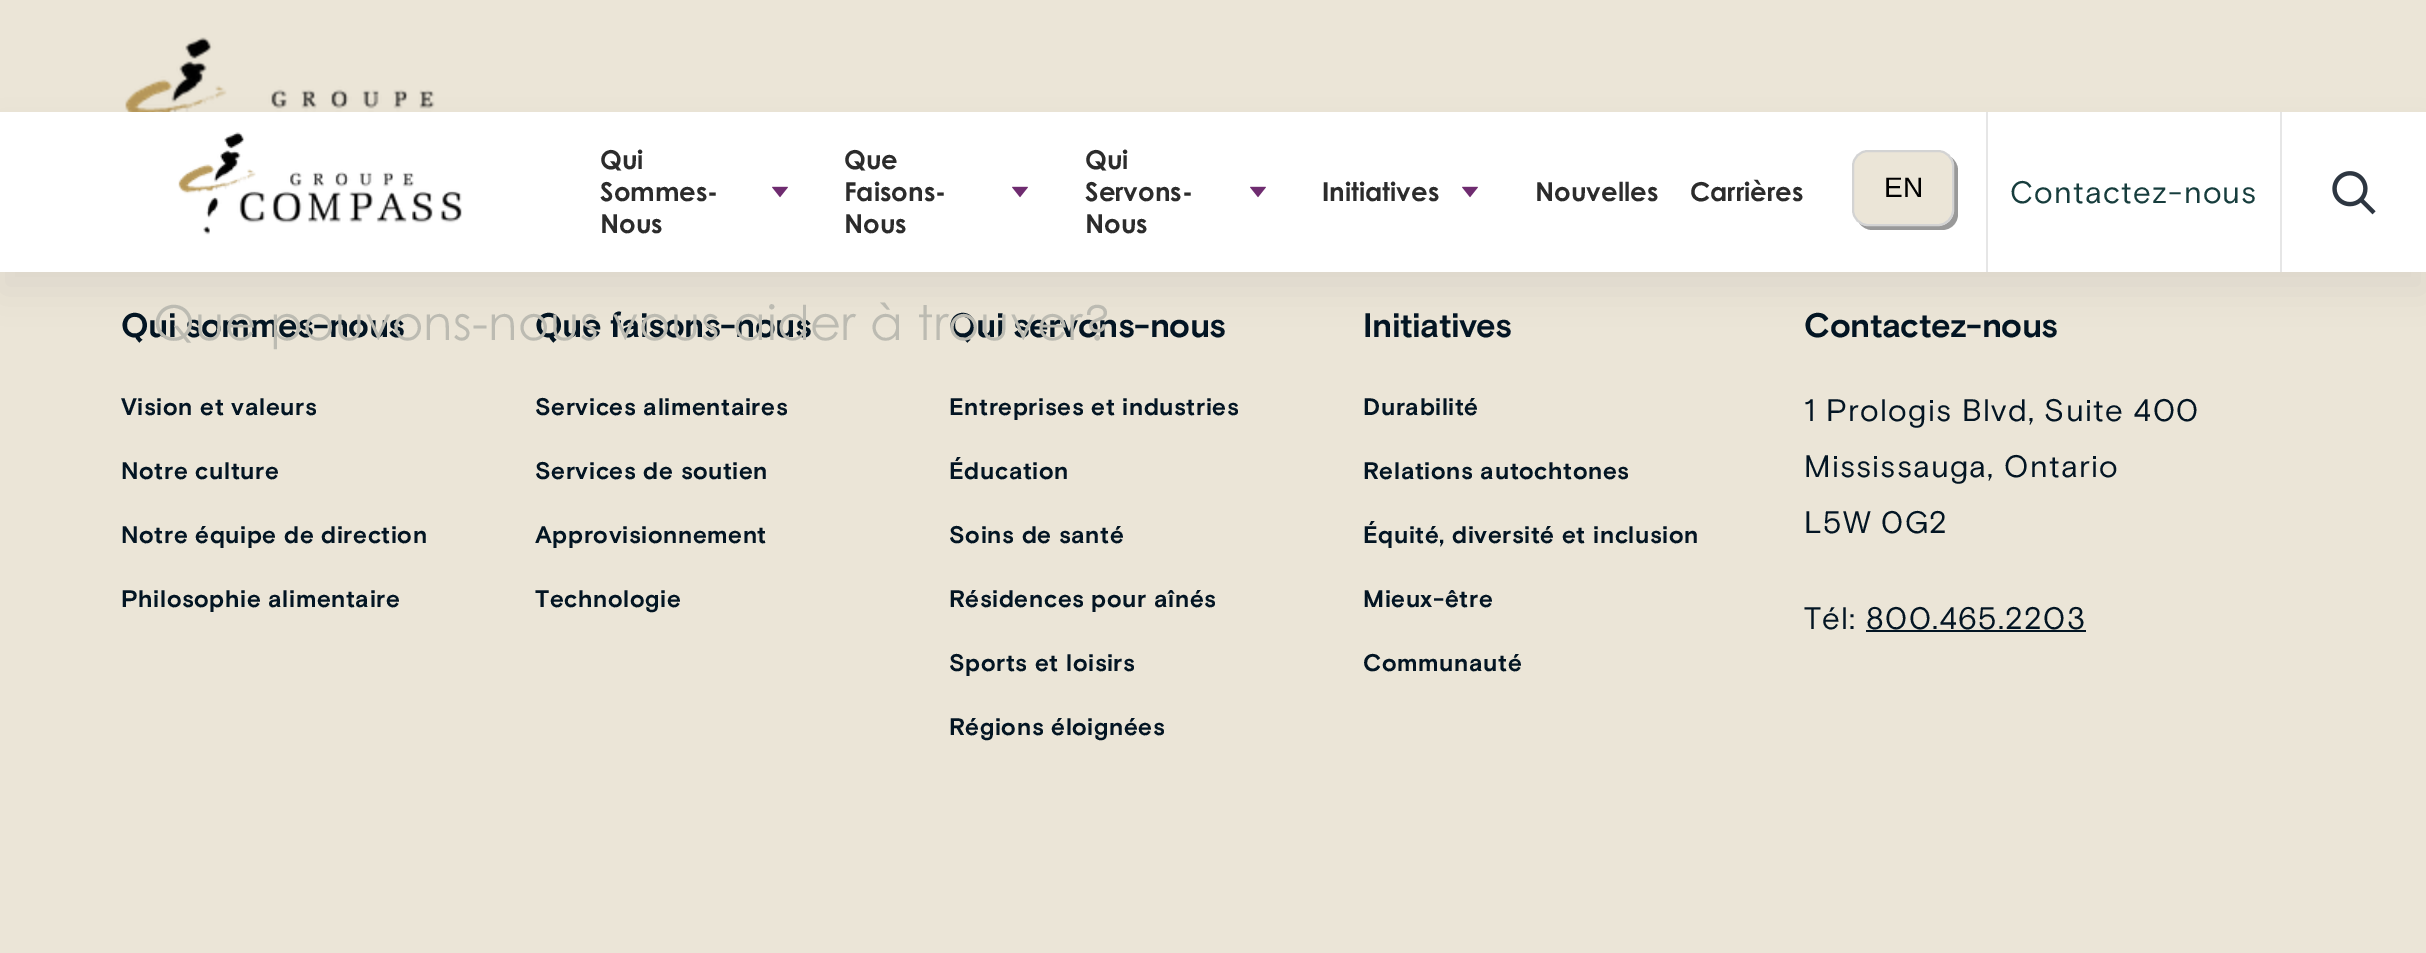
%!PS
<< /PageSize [2426 953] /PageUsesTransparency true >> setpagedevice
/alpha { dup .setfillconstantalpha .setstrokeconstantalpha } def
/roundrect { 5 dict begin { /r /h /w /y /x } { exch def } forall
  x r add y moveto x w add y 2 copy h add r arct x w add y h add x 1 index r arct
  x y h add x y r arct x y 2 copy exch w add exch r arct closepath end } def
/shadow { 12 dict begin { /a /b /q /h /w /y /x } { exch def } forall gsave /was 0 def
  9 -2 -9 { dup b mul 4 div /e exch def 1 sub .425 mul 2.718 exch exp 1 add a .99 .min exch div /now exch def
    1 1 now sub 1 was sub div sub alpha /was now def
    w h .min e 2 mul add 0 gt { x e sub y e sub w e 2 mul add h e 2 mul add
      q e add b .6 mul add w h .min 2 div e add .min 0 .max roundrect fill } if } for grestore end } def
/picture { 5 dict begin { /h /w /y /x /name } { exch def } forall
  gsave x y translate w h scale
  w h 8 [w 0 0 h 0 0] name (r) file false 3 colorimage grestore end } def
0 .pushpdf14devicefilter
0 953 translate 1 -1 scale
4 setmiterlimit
0.922 0.898 0.843 setrgbcolor
0 0 2426 953 rectfill
(img4.rgb) 125 37 310 75 picture
0 setgray
0 132 2426 160 0 20 0.05 shadow
1 setgray
0 112 2426 160 rectfill
(img1.rgb) 178 132 284 103 picture
/CenturyGothic-Bold [26 0 0 -26 0 0] selectfont
0.173 setgray
600 169 moveto (Qui) show
600 201 moveto (Sommes-) show
600 233 moveto (Nous) show
(img2.rgb) 772 186 16 12 picture
844 169 moveto (Que) show
844 201 moveto (Faisons-) show
844 233 moveto (Nous) show
(img2.rgb) 1012 186 16 12 picture
1085 169 moveto (Qui) show
1085 201 moveto (Servons-) show
1085 233 moveto (Nous) show
(img2.rgb) 1250 186 16 12 picture
1322 201 moveto (Initiatives) show
(img2.rgb) 1462 186 16 12 picture
1535 201 moveto (Nouvelles) show
1690 201 moveto (Carrières) show
0.6 setgray
newpath 1859 223 moveto 1862 227 1867 230 1872 230 curveto 1942 230 lineto 1951 230 1958 223 1958 214 curveto 1958 170 lineto 1958 165 1955 160 1951 157 curveto 1953 159 1954 163 1954 166 curveto 1954 210 lineto 1954 219 1947 226 1938 226 curveto 1868 226 lineto 1865 226 1861 225 1859 223 curveto closepath fill
0.922 0.898 0.843 setrgbcolor
1853 151 100 74 15 roundrect gsave fill grestore
0.827 setgray
2 setlinewidth
stroke
/LiberationSans-Regular [28 0 0 -28 0 0] selectfont
0 setgray
1884 197 moveto (EN) show
0.902 setgray
2280 112 2 160 rectfill
1986 112 2 160 rectfill
/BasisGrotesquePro-Regular [31 0 0 -31 0 0] selectfont
0.09 0.239 0.239 setrgbcolor
2010 203 moveto 1.25 0 (Contactez-nous) ashow
(img3.rgb) 2332 171 44 44 picture
/BasisGrotesquePro-Bold [34 0 0 -34 0 0] selectfont
0.012 0.082 0.137 setrgbcolor
121 337 moveto -0.5 0 (Qui sommes-nous) ashow
/BasisGrotesquePro-Bold [24 0 0 -24 0 0] selectfont
121 415 moveto 0.6 0 (Vision et valeurs) ashow
121 479 moveto 0.6 0 (Notre culture) ashow
121 543 moveto 0.6 0 (Notre équipe de direction) ashow
121 607 moveto 0.6 0 (Philosophie alimentaire) ashow
/BasisGrotesquePro-Bold [34 0 0 -34 0 0] selectfont
535 337 moveto -0.5 0 (Que faisons-nous) ashow
/BasisGrotesquePro-Bold [24 0 0 -24 0 0] selectfont
535 415 moveto 0.6 0 (Services alimentaires) ashow
535 479 moveto 0.6 0 (Services de soutien) ashow
535 543 moveto 0.6 0 (Approvisionnement) ashow
535 607 moveto 0.6 0 (Technologie) ashow
/BasisGrotesquePro-Bold [34 0 0 -34 0 0] selectfont
949 337 moveto -0.5 0 (Qui servons-nous) ashow
/BasisGrotesquePro-Bold [24 0 0 -24 0 0] selectfont
949 415 moveto 0.6 0 (Entreprises et industries) ashow
949 479 moveto 0.6 0 (Éducation) ashow
949 543 moveto 0.6 0 (Soins de santé) ashow
949 607 moveto 0.6 0 (Résidences pour aînés) ashow
949 671 moveto 0.6 0 (Sports et loisirs) ashow
949 735 moveto 0.6 0 (Régions éloignées) ashow
/BasisGrotesquePro-Bold [34 0 0 -34 0 0] selectfont
1363 337 moveto -0.5 0 (Initiatives) ashow
/BasisGrotesquePro-Bold [24 0 0 -24 0 0] selectfont
1363 415 moveto 0.6 0 (Durabilité) ashow
1363 479 moveto 0.6 0 (Relations autochtones) ashow
1363 543 moveto 0.6 0 (Équité, diversité et inclusion) ashow
1363 607 moveto 0.6 0 (Mieux-être) ashow
1363 671 moveto 0.6 0 (Communauté) ashow
/BasisGrotesquePro-Bold [34 0 0 -34 0 0] selectfont
1804 337 moveto -0.5 0 (Contactez-nous) ashow
/BasisGrotesquePro-Regular [31 0 0 -31 0 0] selectfont
1804 421 moveto 1.25 0 (1 Prologis Blvd, Suite 400) ashow
1804 477 moveto 1.25 0 (Mississauga, Ontario) ashow
1804 533 moveto 1.25 0 (L5W 0G2) ashow
1804 629 moveto 1.25 0 (Tél: 800.465.2203) ashow
1866 630 220 2 rectfill
/CenturyGothic-Regular [48 0 0 -48 0 0] selectfont
0.737 0.733 0.698 setrgbcolor
153 340 moveto 0.4 0 (Que pouvons-nous vous aider à trouver?) ashow
.poppdf14devicefilter showpage
